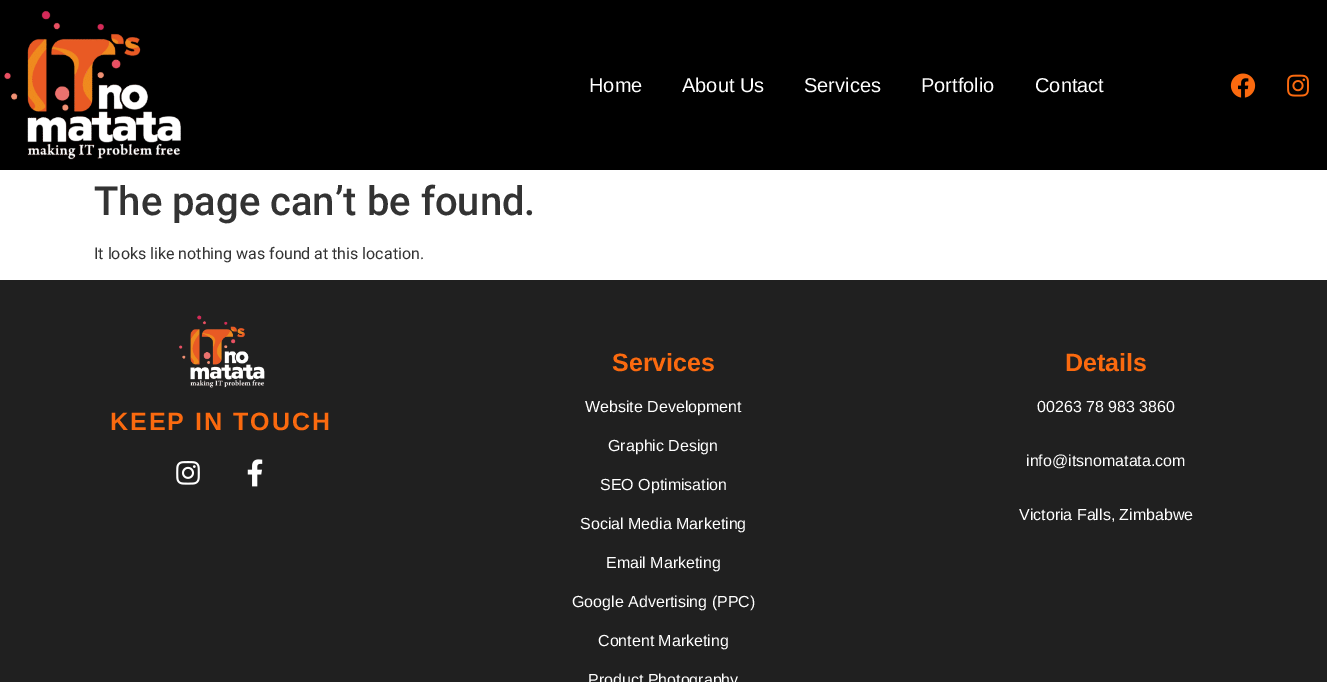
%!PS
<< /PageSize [1327 682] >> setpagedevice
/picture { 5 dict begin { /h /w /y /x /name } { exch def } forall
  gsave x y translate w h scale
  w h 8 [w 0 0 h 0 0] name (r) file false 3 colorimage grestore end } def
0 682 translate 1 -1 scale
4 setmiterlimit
1 setgray
0 0 1327 682 rectfill
0 setgray
0 0 1327 170 rectfill
(img1.rgb) 4 10 177 150 picture
/LiberationSans-Regular [20 0 0 -20 0 0] selectfont
1 setgray
589 92 moveto (Home) show
682 92 moveto (About Us) show
804 92 moveto (Services) show
921 92 moveto (Portfolio) show
1035 92 moveto (Contact) show
(img2.rgb) 1230 73 26 25 picture
(img3.rgb) 1287 74 22 23 picture
/Roboto-Medium [40 0 0 -40 0 0] selectfont
0.2 setgray
94 215 moveto (The page can’t be found.) show
/Roboto-Regular [16 0 0 -16 0 0] selectfont
94 259 moveto (It looks like nothing was found at this location.) show
0.125 setgray
0 280 1327 402 rectfill
(img4.rgb) 179 315 86 73 picture
/LiberationSans-Bold [25 0 0 -25 0 0] selectfont
0.984 0.416 0.059 setrgbcolor
110 430 moveto 2 0 (KEEP IN TOUCH) ashow
(img5.rgb) 176 461 24 24 picture
(img6.rgb) 247 459 16 28 picture
612 371 moveto (Services) show
/LiberationSans-Regular [16 0 0 -16 0 0] selectfont
1 setgray
585 412 moveto (Website Development) show
608 451 moveto (Graphic Design) show
600 490 moveto (SEO Optimisation) show
580 529 moveto (Social Media Marketing) show
606 568 moveto (Email Marketing) show
572 607 moveto (Google Advertising \(PPC\)) show
598 646 moveto (Content Marketing) show
588 685 moveto (Product Photography) show
/LiberationSans-Bold [25 0 0 -25 0 0] selectfont
0.984 0.416 0.059 setrgbcolor
1065 371 moveto (Details) show
/LiberationSans-Regular [16 0 0 -16 0 0] selectfont
1 setgray
1037 412 moveto (00263 78 983 3860) show
1026 466 moveto (info@itsnomatata.com) show
1019 520 moveto (Victoria Falls, Zimbabwe) show
showpage
